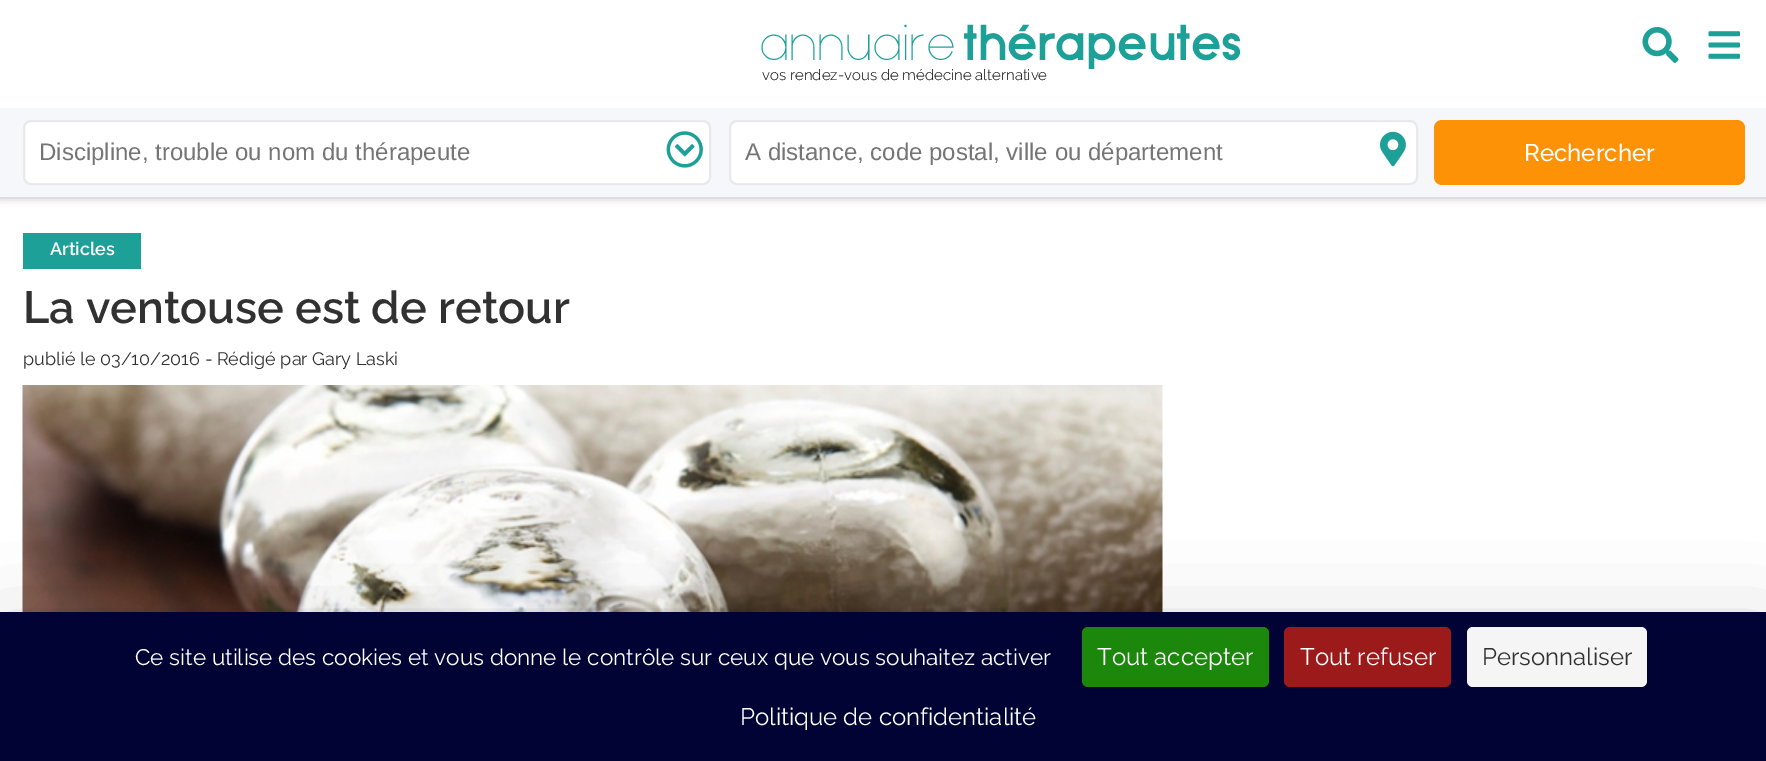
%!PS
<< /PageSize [1766 761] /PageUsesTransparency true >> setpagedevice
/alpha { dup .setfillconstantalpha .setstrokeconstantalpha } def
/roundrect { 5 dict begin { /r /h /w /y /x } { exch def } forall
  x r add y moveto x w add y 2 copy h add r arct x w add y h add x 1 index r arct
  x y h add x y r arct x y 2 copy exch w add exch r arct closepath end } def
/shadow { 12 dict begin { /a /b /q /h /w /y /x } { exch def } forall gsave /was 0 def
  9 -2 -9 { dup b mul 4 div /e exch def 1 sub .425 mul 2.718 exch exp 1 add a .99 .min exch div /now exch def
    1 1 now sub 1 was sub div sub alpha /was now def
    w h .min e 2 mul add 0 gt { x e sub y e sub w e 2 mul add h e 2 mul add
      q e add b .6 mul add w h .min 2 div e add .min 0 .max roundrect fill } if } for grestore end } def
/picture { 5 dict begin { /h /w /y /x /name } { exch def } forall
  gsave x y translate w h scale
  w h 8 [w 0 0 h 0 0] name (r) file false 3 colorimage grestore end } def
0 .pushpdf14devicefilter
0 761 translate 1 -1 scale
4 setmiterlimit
1 setgray
0 0 1766 761 rectfill
0.733 setgray
0 2 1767 196 0 4 1 shadow
1 setgray
0 0 1766 108 rectfill
/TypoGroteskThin-Thin [49.5 0 0 -49.5 0 0] selectfont
0.114 0.627 0.592 setrgbcolor
759 60 moveto (annuaire) show
/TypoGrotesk-Bold [49.5 0 0 -49.5 0 0] selectfont
963 60 moveto (thérapeutes) show
/Raleway-Light [15 0 0 -15 0 0] selectfont
0 setgray
762 80 moveto (vos rendez-vous de médecine alternative) show
(img1.rgb) 1642 27 37 36 picture
(img2.rgb) 1708 31 32 28 picture
0.965 0.969 0.98 setrgbcolor
0 108 1766 89 rectfill
1 setgray
24 121 686 63 7 roundrect gsave fill grestore
0.914 setgray
2 setlinewidth
stroke
/LiberationSans-Regular [24 0 0 -24 0 0] selectfont
0.459 setgray
39 160 moveto (Discipline, trouble ou nom du thérapeute) show
(img3.rgb) 666 131 37 37 picture
1 setgray
730 121 687 63 7 roundrect gsave fill grestore
0.914 setgray
stroke
0.459 setgray
745 160 moveto (A distance, code postal, ville ou département) show
(img4.rgb) 1380 131 26 36 picture
0.992 0.573 0.024 setrgbcolor
1434 120 311 65 8 roundrect fill
/Raleway-Medium [24 0 0 -24 0 0] selectfont
1 setgray
1524 161 moveto (Rechercher) show
0.114 0.627 0.592 setrgbcolor
23 233 118 36 rectfill
/Raleway-SemiBold [18 0 0 -18 0 0] selectfont
1 setgray
50 255 moveto (Articles) show
/Raleway-SemiBold [45 0 0 -45 0 0] selectfont
0.192 setgray
23 323 moveto (La ventouse est de retour) show
/Raleway-Regular [18 0 0 -18 0 0] selectfont
23 365 moveto (publié le 03/10/2016 - Rédigé par Gary Laski) show
(img5.rgb) 22 385 1141 227 picture
0 setgray
0 642 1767 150 0 45 0.25 shadow
0 0.012 0.2 setrgbcolor
0 612 1766 149 rectfill
/Raleway-Regular [22.5 0 0 -22.5 0 0] selectfont
1 setgray
135 665 moveto (Ce site utilise des cookies et vous donne le contrôle sur ceux que vous souhaitez activer) show
0.106 0.529 0.043 setrgbcolor
1082 627 187 60 6 roundrect fill
/Raleway-Regular [24 0 0 -24 0 0] selectfont
1 setgray
1097 665 moveto (Tout accepter) show
0.612 0.102 0.102 setrgbcolor
1284 627 167 60 6 roundrect fill
1 setgray
1300 665 moveto (Tout refuser) show
0.961 setgray
1467 627 180 60 6 roundrect fill
0.192 setgray
1482 665 moveto (Personnaliser) show
1 setgray
740 725 moveto (Politique de confidentialité) show
.poppdf14devicefilter showpage
